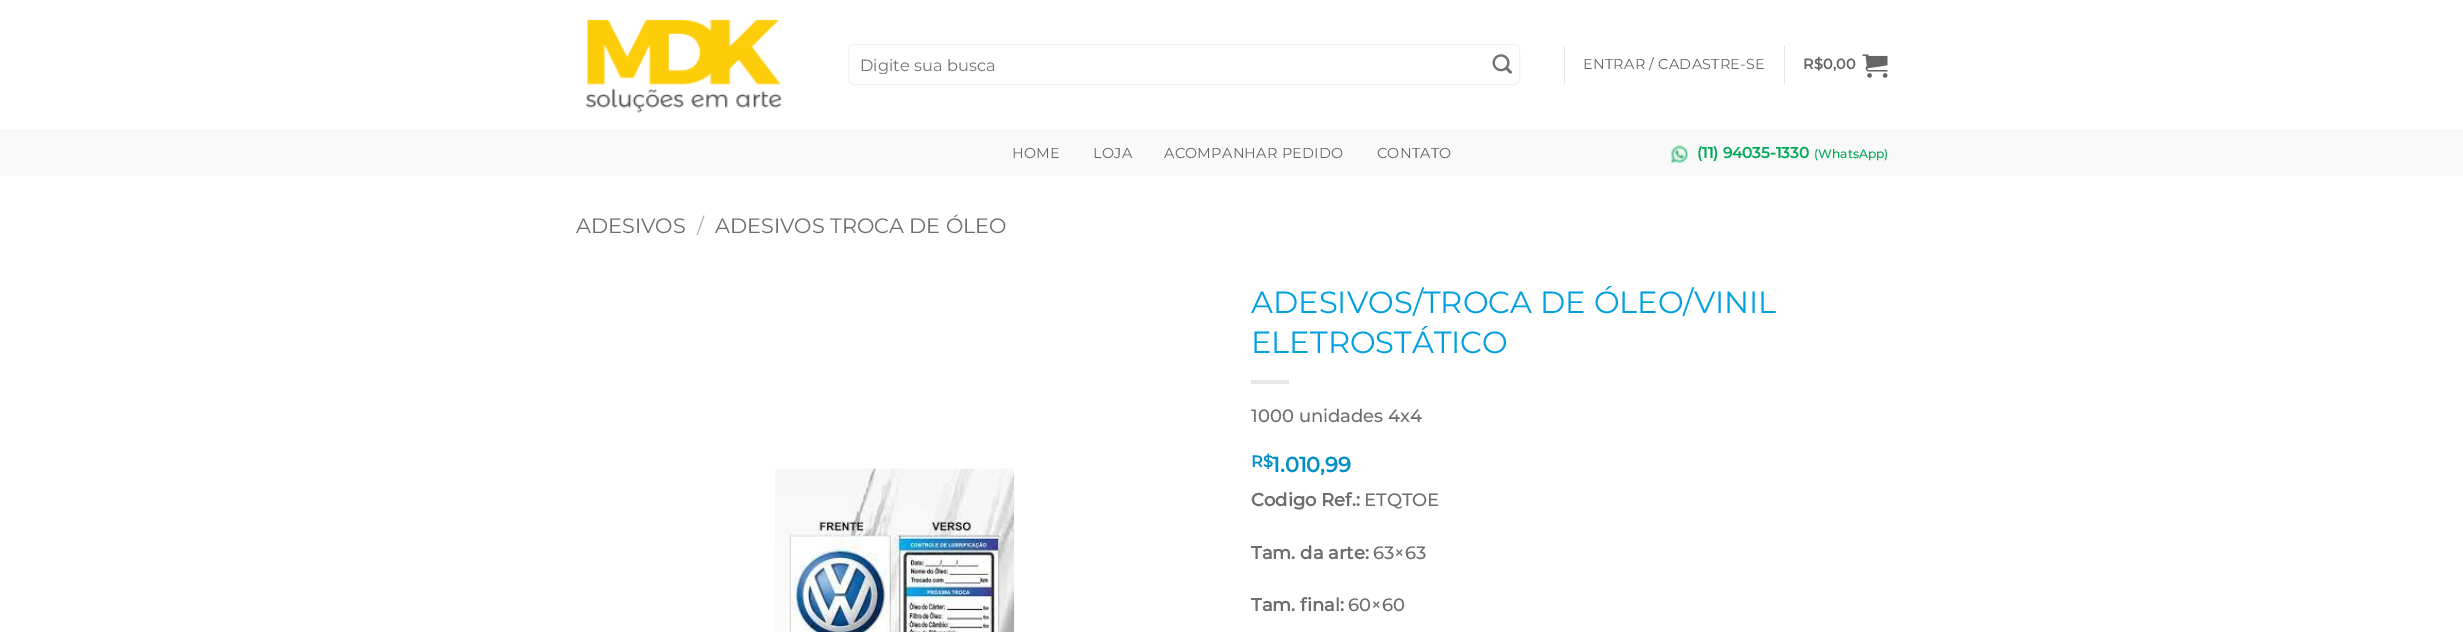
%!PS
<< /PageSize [2463 632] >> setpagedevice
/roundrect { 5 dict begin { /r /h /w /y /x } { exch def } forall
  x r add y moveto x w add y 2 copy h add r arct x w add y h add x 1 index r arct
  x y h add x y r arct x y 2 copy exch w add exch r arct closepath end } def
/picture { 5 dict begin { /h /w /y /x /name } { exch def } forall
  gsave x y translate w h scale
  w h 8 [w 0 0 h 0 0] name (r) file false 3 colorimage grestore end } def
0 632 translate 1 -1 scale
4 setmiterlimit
1 setgray
0 0 2463 632 rectfill
(img1.rgb) 586 19 196 94 picture
0.949 setgray
848.5 44.5 671 40 5.5 roundrect stroke
gsave
860 54 641 20 rectclip
/Montserrat-Regular [16.25 0 0 -16.25 0 0] selectfont
0.459 setgray
860 71 moveto (Digite sua busca) show
grestore
(img2.rgb) 1492 54 20 20 picture
0.902 setgray
1564 46 1 38 rectfill
/Montserrat-Regular [14.4 0 0 -14.4 0 0] selectfont
0.392 setgray
1583 69 moveto 0.25 0 (ENTRAR / CADASTRE-SE) ashow
0.902 setgray
1784 46 1 38 rectfill
/Montserrat-Bold [14.4 0 0 -14.4 0 0] selectfont
0.392 setgray
1803 69 moveto 0.25 0 (R$0,00) ashow
(img3.rgb) 1862 54 26 24 picture
0.976 setgray
0 129 2463 47 rectfill
/Montserrat-Regular [14.4 0 0 -14.4 0 0] selectfont
0.392 setgray
1012 158 moveto 0.25 0 (HOME) ashow
1093 158 moveto 0.25 0 (LOJA) ashow
1164 158 moveto 0.25 0 (ACOMPANHAR PEDIDO) ashow
1377 158 moveto 0.25 0 (CONTATO) ashow
(img4.rgb) 1671 145 17 19 picture
/Montserrat-Bold [15.25 0 0 -15.25 0 0] selectfont
0 0.659 0.349 setrgbcolor
1697 158 moveto (\(11\) 94035-1330) show
/Montserrat-Medium [12.25 0 0 -12.25 0 0] selectfont
1814 158 moveto (\(WhatsApp\)) show
/Montserrat-Regular [20.75 0 0 -20.75 0 0] selectfont
0.431 setgray
576 233 moveto (ADESIVOS) show
0.698 setgray
697 233 moveto (/) show
0.431 setgray
715 233 moveto (ADESIVOS TROCA DE ÓLEO) show
(img5.rgb) 775 468 240 164 picture
/Montserrat-Regular [30.6 0 0 -30.6 0 0] selectfont
0.004 0.627 0.882 setrgbcolor
1251 313 moveto (ADESIVOS/TROCA DE ÓLEO/VINIL) show
1251 353 moveto (ELETROSTÁTICO) show
0.902 setgray
1251 380 38 4 rectfill
/Montserrat-Medium [18 0 0 -18 0 0] selectfont
0.431 setgray
1251 422 moveto (1000 unidades 4x4) show
/Montserrat-Bold [16 0 0 -16 0 0] selectfont
0.016 0.565 0.78 setrgbcolor
1251 467 moveto (R$) show
/Montserrat-Bold [21 0 0 -21 0 0] selectfont
1272 472 moveto (1.010,99) show
/Montserrat-Bold [18 0 0 -18 0 0] selectfont
0.431 setgray
1251 506 moveto (Codigo Ref.:) show
/Montserrat-Medium [18 0 0 -18 0 0] selectfont
1364 506 moveto (ETQTOE) show
/Montserrat-Bold [18 0 0 -18 0 0] selectfont
1251 559 moveto (Tam. da arte:) show
/Montserrat-Medium [18 0 0 -18 0 0] selectfont
1373 559 moveto (63×63) show
/Montserrat-Bold [18 0 0 -18 0 0] selectfont
1251 611 moveto (Tam. final:) show
/Montserrat-Medium [18 0 0 -18 0 0] selectfont
1348 611 moveto (60×60) show
showpage
